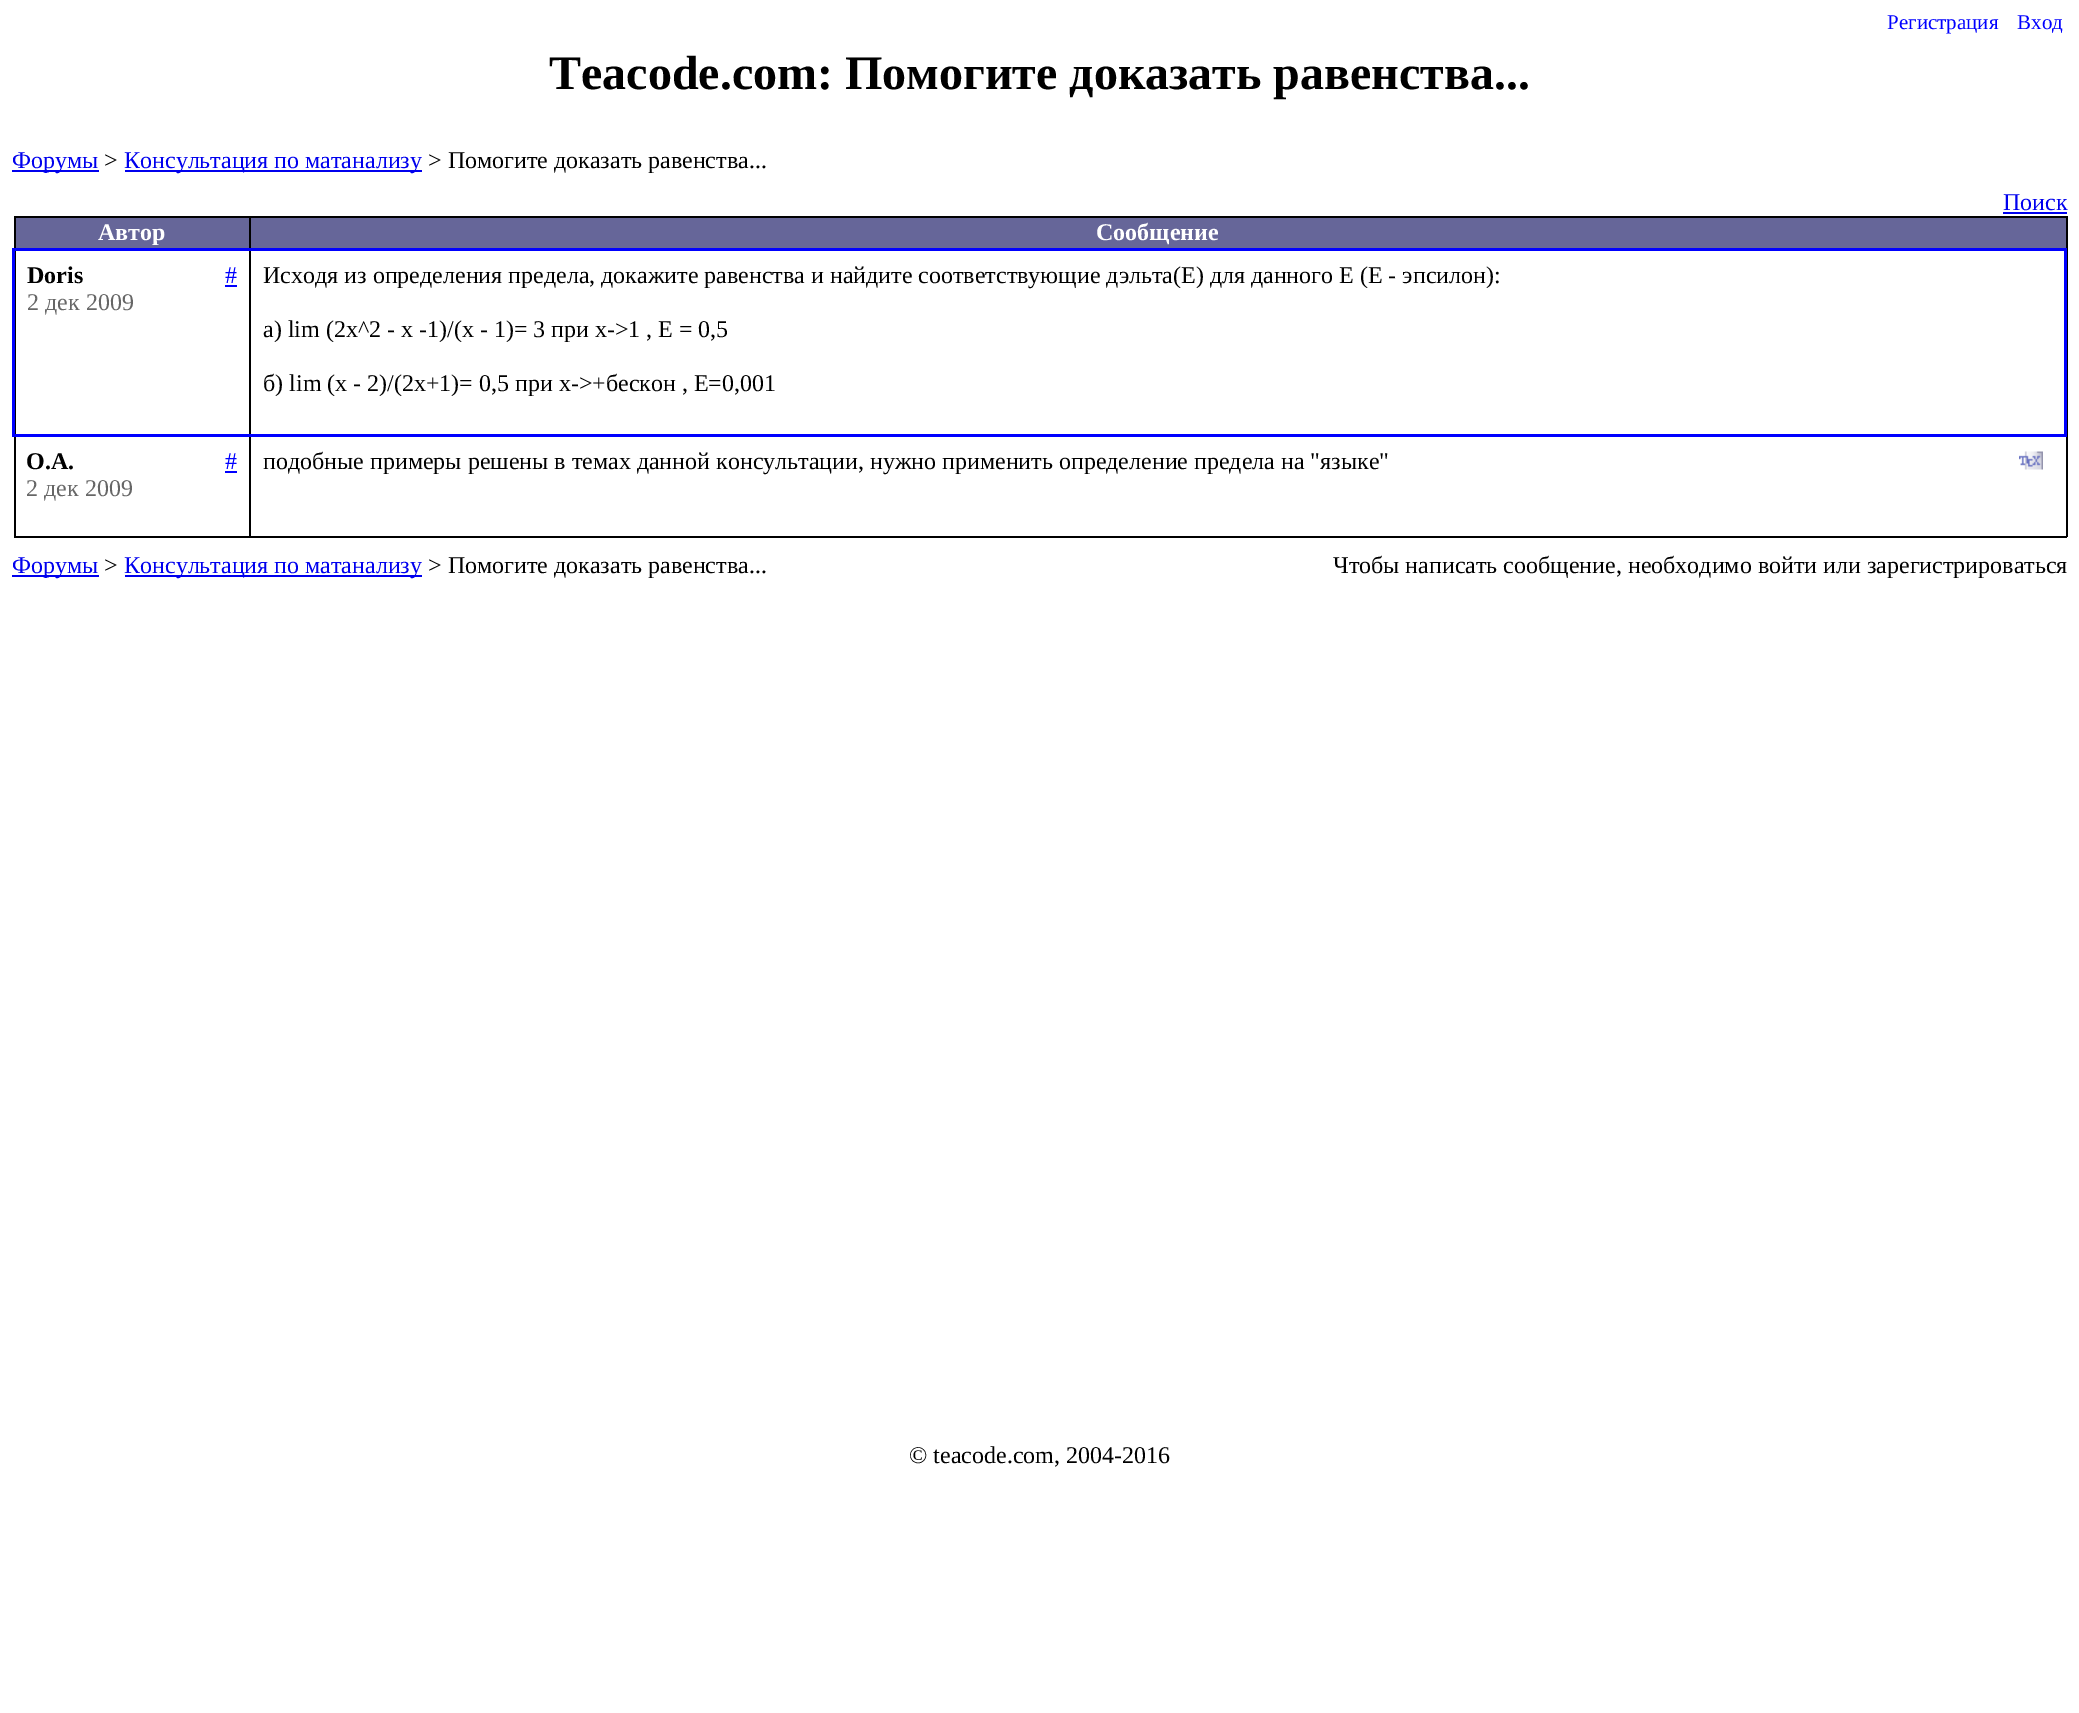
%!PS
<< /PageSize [2079 1713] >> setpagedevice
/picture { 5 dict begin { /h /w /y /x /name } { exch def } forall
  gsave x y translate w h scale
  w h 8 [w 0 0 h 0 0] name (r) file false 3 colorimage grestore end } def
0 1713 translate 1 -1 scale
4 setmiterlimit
1 setgray
0 0 2079 1713 rectfill
/LiberationSerif-Regular [21 0 0 -21 0 0] selectfont
0 0 1 setrgbcolor
1887 29 moveto (Регистрация) show
2017 29 moveto (Вход) show
/LiberationSerif-Bold [48 0 0 -48 0 0] selectfont
0 setgray
549 89 moveto (Teacode.com: Помогите доказать равенства...) show
0 0 0.933 setrgbcolor
12 170 87 2 rectfill
/LiberationSerif-Regular [24 0 0 -24 0 0] selectfont
12 168 moveto (Форумы) show
0 setgray
104 168 moveto (>) show
0 0 0.933 setrgbcolor
125 170 297 2 rectfill
124 168 moveto (Консультация по матанализу) show
0 setgray
428 168 moveto (> Помогите доказать равенства...) show
0 0 0.933 setrgbcolor
2003 210 moveto (Поиск) show
2003 212 64 2 rectfill
0.4 0.4 0.6 setrgbcolor
16 218 2050 30 rectfill
0 setgray
249 216 1818 2 rectfill
2066 434 2 103 rectfill
249 536 1818 2 rectfill
249 248 2 289 rectfill
249 216 2 33 rectfill
14 216 237 2 rectfill
14 536 237 2 rectfill
14 434 2 103 rectfill
15 248 1 187 rectfill
14 216 2 33 rectfill
/LiberationSerif-Bold [24 0 0 -24 0 0] selectfont
1 setgray
98 240 moveto (Автор) show
0 setgray
2067 248 1 187 rectfill
2066 216 2 33 rectfill
1 setgray
1096 240 moveto (Сообщение) show
0 0 1 setrgbcolor
12 248 2055 3 rectfill
2064 248 3 189 rectfill
12 434 2055 3 rectfill
12 248 3 189 rectfill
0 setgray
27 283 moveto (Doris) show
/LiberationSerif-Regular [24 0 0 -24 0 0] selectfont
0 0 1 setrgbcolor
225 283 moveto (#) show
225 285 12 2 rectfill
0.4 setgray
27 310 moveto (2 дек 2009) show
0 setgray
263 283 moveto (Исходя из определения предела, докажите равенства и найдите соответствующие дэльта\(Е\) для данного Е \(Е - эпсилон\):) show
263 337 moveto (a\) lim \(2x^2 - x -1\)/\(x - 1\)= 3 при x->1 , E = 0,5) show
263 391 moveto (б\) lim \(x - 2\)/\(2x+1\)= 0,5 при x->+бескон , Е=0,001) show
/LiberationSerif-Bold [24 0 0 -24 0 0] selectfont
26 469 moveto (О.А.) show
/LiberationSerif-Regular [24 0 0 -24 0 0] selectfont
0 0 1 setrgbcolor
225 469 moveto (#) show
225 471 12 2 rectfill
0.4 setgray
26 496 moveto (2 дек 2009) show
0 setgray
263 469 moveto (подобные примеры решены в темах данной консультации, нужно применить определение предела на "языке") show
(img1.rgb) 2019 451 24 19 picture
0 0 0.933 setrgbcolor
12 575 87 2 rectfill
12 573 moveto (Форумы) show
0 setgray
104 573 moveto (>) show
0 0 0.933 setrgbcolor
125 575 297 2 rectfill
124 573 moveto (Консультация по матанализу) show
0 setgray
428 573 moveto (> Помогите доказать равенства...) show
1333 573 moveto (Чтобы написать сообщение, необходимо войти или зарегистрироваться) show
909 1463 moveto (© teacode.com, 2004-2016) show
showpage
